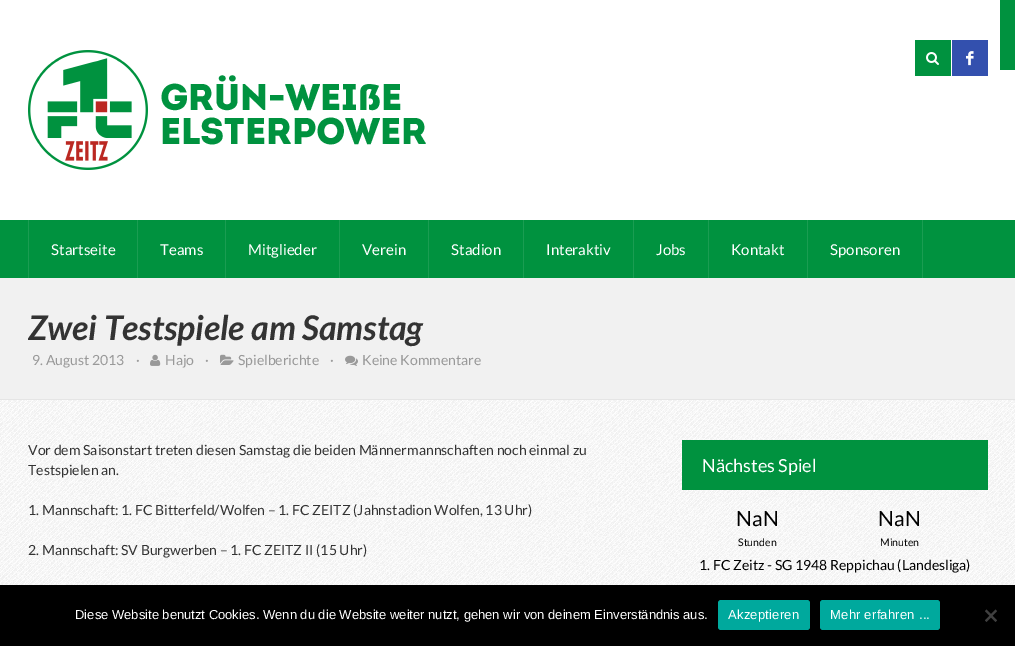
%!PS
<< /PageSize [1015 646] >> setpagedevice
/roundrect { 5 dict begin { /r /h /w /y /x } { exch def } forall
  x r add y moveto x w add y 2 copy h add r arct x w add y h add x 1 index r arct
  x y h add x y r arct x y 2 copy exch w add exch r arct closepath end } def
/picture { 5 dict begin { /h /w /y /x /name } { exch def } forall
  gsave x y translate w h scale
  w h 8 [w 0 0 h 0 0] name (r) file false 3 colorimage grestore end } def
0 646 translate 1 -1 scale
4 setmiterlimit
1 setgray
0 0 1015 646 rectfill
(img1.rgb) 28 50 398 120 picture
0 0.573 0.247 setrgbcolor
915 40 36 36 rectfill
(img2.rgb) 926 52 13 13 picture
0.2 0.314 0.682 setrgbcolor
952 40 36 36 rectfill
(img3.rgb) 966 51 8 15 picture
0 0.573 0.247 setrgbcolor
1000 0 15 70 rectfill
0 220 1015 58 rectfill
0.102 0.616 0.322 setrgbcolor
28 220 1 58 rectfill
137 220 1 58 rectfill
/Lato-Regular [15 0 0 -15 0 0] selectfont
1 setgray
51 255 moveto (Startseite) show
0.102 0.616 0.322 setrgbcolor
225 220 1 58 rectfill
1 setgray
160 255 moveto (Teams) show
0.102 0.616 0.322 setrgbcolor
339 220 1 58 rectfill
1 setgray
248 255 moveto (Mitglieder) show
0.102 0.616 0.322 setrgbcolor
428 220 1 58 rectfill
1 setgray
362 255 moveto (Verein) show
0.102 0.616 0.322 setrgbcolor
523 220 1 58 rectfill
1 setgray
451 255 moveto (Stadion) show
0.102 0.616 0.322 setrgbcolor
633 220 1 58 rectfill
1 setgray
546 255 moveto (Interaktiv) show
0.102 0.616 0.322 setrgbcolor
708 220 1 58 rectfill
1 setgray
656 255 moveto (Jobs) show
0.102 0.616 0.322 setrgbcolor
807 220 1 58 rectfill
1 setgray
731 255 moveto (Kontakt) show
0.102 0.616 0.322 setrgbcolor
922 220 1 58 rectfill
1 setgray
830 255 moveto (Sponsoren) show
0.945 setgray
0 278 1015 121 rectfill
0.898 setgray
0 399 1015 1 rectfill
/Lato-BoldItalic [34 0 0 -34 0 0] selectfont
0.2 setgray
28 340 moveto (Zwei Testspiele am Samstag) show
/Lato-Regular [14 0 0 -14 0 0] selectfont
0.6 setgray
32 365 moveto (9. August 2013) show
136 365 moveto (·) show
(img4.rgb) 150 354 11 12 picture
165 365 moveto (Hajo) show
205 365 moveto (·) show
(img5.rgb) 220 354 14 11 picture
238 365 moveto (Spielberichte) show
330 365 moveto (·) show
(img6.rgb) 345 355 13 11 picture
362 365 moveto (Keine Kommentare) show
(img7.rgb) 0 400 1015 185 picture
0.2 setgray
28 455 moveto (Vor dem Saisonstart treten diesen Samstag die beiden Männermannschaften noch einmal zu) show
28 475 moveto (Testspielen an.) show
28 515 moveto (1. Mannschaft: 1. FC Bitterfeld/Wolfen – 1. FC ZEITZ \(Jahnstadion Wolfen, 13 Uhr\)) show
28 555 moveto (2. Mannschaft: SV Burgwerben – 1. FC ZEITZ II \(15 Uhr\)) show
0 0.573 0.247 setrgbcolor
682 440 306 50 rectfill
/Lato-Regular [18 0 0 -18 0 0] selectfont
1 setgray
702 472 moveto (Nächstes Spiel) show
/Lato-Regular [21 0 0 -21 0 0] selectfont
0 setgray
736 526 moveto (NaN) show
/Lato-Regular [10.5 0 0 -10.5 0 0] selectfont
738 546 moveto (Stunden) show
/Lato-Regular [21 0 0 -21 0 0] selectfont
878 526 moveto (NaN) show
/Lato-Regular [10.5 0 0 -10.5 0 0] selectfont
880 546 moveto (Minuten) show
/Lato-Regular [14 0 0 -14 0 0] selectfont
699 570 moveto (1. FC Zeitz - SG 1948 Reppichau \(Landesliga\)) show
0 585 1015 61 rectfill
/LiberationSans-Regular [13 0 0 -13 0 0] selectfont
1 setgray
75 619 moveto (Diese Website benutzt Cookies. Wenn du die Website weiter nutzt, gehen wir von deinem Einverständnis aus.) show
0 0.663 0.616 setrgbcolor
718 600 92 30 3 roundrect fill
1 setgray
728 619 moveto 0.25 0 (Akzeptieren) ashow
0 0.663 0.616 setrgbcolor
820 600 120 30 3 roundrect fill
1 setgray
830 619 moveto 0.25 0 (Mehr erfahren ...) ashow
0.251 setgray
newpath 995.5 609.5 moveto 997 611 lineto 986.5 622 lineto 985 620.5 lineto closepath fill
newpath 985 611 moveto 986.5 609.5 lineto 997 620.5 lineto 995.5 622 lineto closepath fill
showpage
